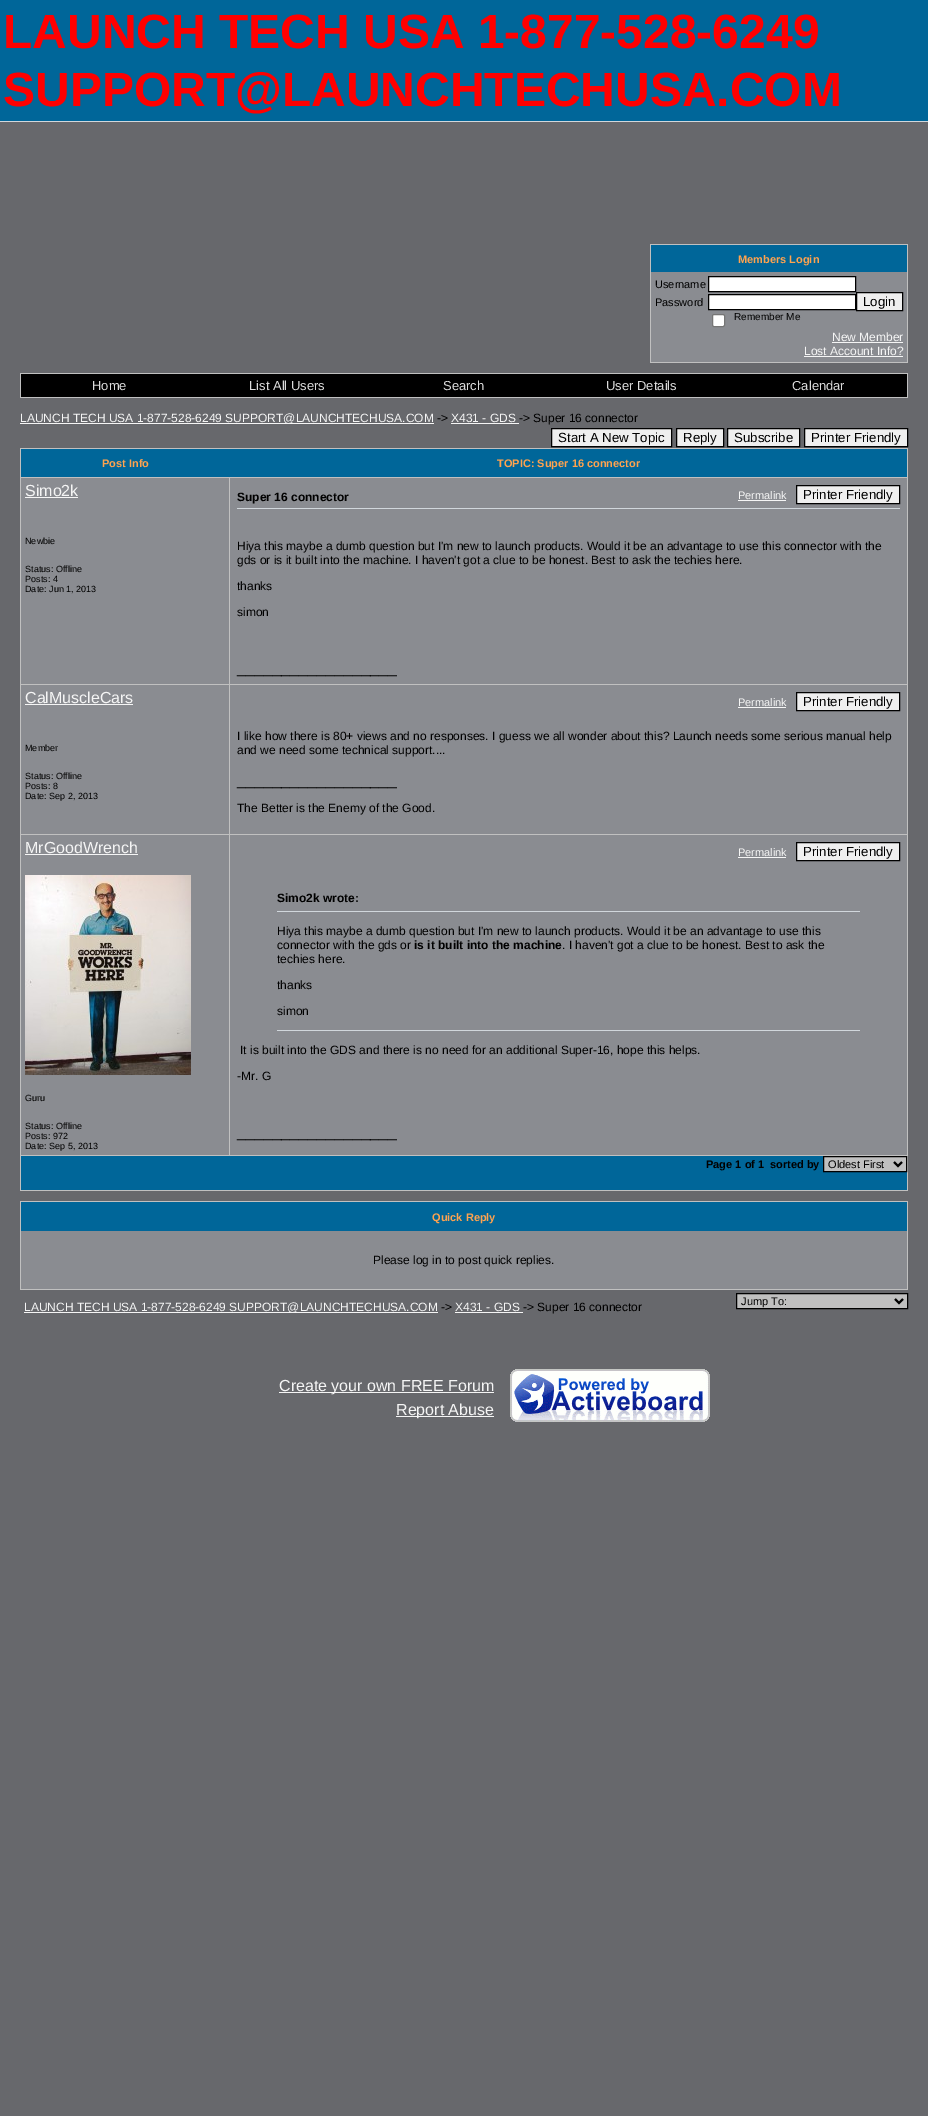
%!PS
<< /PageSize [928 2116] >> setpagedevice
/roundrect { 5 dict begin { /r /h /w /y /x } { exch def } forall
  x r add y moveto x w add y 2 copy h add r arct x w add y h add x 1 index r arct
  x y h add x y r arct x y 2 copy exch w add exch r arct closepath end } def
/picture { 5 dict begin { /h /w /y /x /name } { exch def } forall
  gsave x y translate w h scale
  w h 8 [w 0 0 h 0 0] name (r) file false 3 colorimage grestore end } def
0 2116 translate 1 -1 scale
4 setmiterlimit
0.404 0.408 0.424 setrgbcolor
0 0 928 2116 rectfill
0 0.4 0.6 setrgbcolor
0 0 928 121 rectfill
0.82 0.843 0.863 setrgbcolor
0 121 928 1 rectfill
/LiberationSans-Bold [48 0 0 -48 0 0] selectfont
1 0 0 setrgbcolor
3 48 moveto (LAUNCH TECH USA 1-877-528-6249) show
3 106 moveto (SUPPORT@LAUNCHTECHUSA.COM) show
0 0.4 0.6 setrgbcolor
651 245 256 27 rectfill
0.753 setgray
650 244 258 1 rectfill
907 244 1 119 rectfill
650 362 258 1 rectfill
650 244 1 119 rectfill
/LiberationSans-Bold [11 0 0 -11 0 0] selectfont
1 0.639 0.31 setrgbcolor
738 263 moveto (Members Login) show
0.541 0.549 0.569 setrgbcolor
651 272 256 90 rectfill
/LiberationSans-Regular [11 0 0 -11 0 0] selectfont
0 setgray
655 288 moveto (Username) show
1 setgray
newpath 708.5 276.5 moveto 855.5 276.5 lineto 855.5 291.5 lineto 708.5 291.5 lineto closepath gsave fill grestore
0 setgray
stroke
655 306 moveto (Password) show
1 setgray
newpath 708.5 294.5 moveto 855.5 294.5 lineto 855.5 309.5 lineto 708.5 309.5 lineto closepath gsave fill grestore
0 setgray
stroke
0.937 setgray
newpath 856.5 292.5 moveto 902.5 292.5 lineto 902.5 310.5 lineto 856.5 310.5 lineto closepath gsave fill grestore
0 setgray
stroke
/LiberationSans-Regular [13.25 0 0 -13.25 0 0] selectfont
863 306 moveto (Login) show
1 setgray
712.5 314.5 12 12 1.5 roundrect gsave fill grestore
0.463 setgray
stroke
/LiberationSans-Regular [10 0 0 -10 0 0] selectfont
0 setgray
734 320 moveto (Remember Me) show
/LiberationSans-Regular [12 0 0 -12 0 0] selectfont
0.961 setgray
832 341 moveto (New Member) show
832 342 71 1 rectfill
804 355 moveto (Lost Account Info?) show
804 356 99 1 rectfill
0.753 setgray
20 373 888 1 rectfill
907 373 1 25 rectfill
20 397 888 1 rectfill
20 373 1 25 rectfill
0 setgray
21 374 886 23 rectfill
/LiberationSans-Regular [13 0 0 -13 0 0] selectfont
0.863 setgray
92 390 moveto (Home) show
249 390 moveto (List All Users) show
443 390 moveto (Search) show
606 390 moveto (User Details) show
792 390 moveto (Calendar) show
0.961 setgray
20 423 414 1 rectfill
/LiberationSans-Regular [12 0 0 -12 0 0] selectfont
20 422 moveto (LAUNCH TECH USA 1-877-528-6249 SUPPORT@LAUNCHTECHUSA.COM) show
0 setgray
437 422 moveto (->) show
0.961 setgray
451 422 moveto (X431 - GDS) show
451 423 68 1 rectfill
0 setgray
519 422 moveto (-> Super 16 connector) show
0.937 setgray
newpath 551.5 428.5 moveto 671.5 428.5 lineto 671.5 446.5 lineto 551.5 446.5 lineto closepath gsave fill grestore
0 setgray
stroke
/LiberationSans-Regular [13.25 0 0 -13.25 0 0] selectfont
558 442 moveto (Start A New Topic) show
0.937 setgray
newpath 676.5 428.5 moveto 723.5 428.5 lineto 723.5 446.5 lineto 676.5 446.5 lineto closepath gsave fill grestore
0 setgray
stroke
683 442 moveto (Reply) show
0.937 setgray
newpath 727.5 428.5 moveto 799.5 428.5 lineto 799.5 446.5 lineto 727.5 446.5 lineto closepath gsave fill grestore
0 setgray
stroke
734 442 moveto (Subscribe) show
0.937 setgray
newpath 804.5 428.5 moveto 907.5 428.5 lineto 907.5 446.5 lineto 804.5 446.5 lineto closepath gsave fill grestore
0 setgray
stroke
811 442 moveto (Printer Friendly) show
0 0.4 0.6 setrgbcolor
21 449 886 741 rectfill
0.753 setgray
20 448 888 1 rectfill
907 448 1 743 rectfill
20 1190 888 1 rectfill
20 448 1 743 rectfill
/LiberationSans-Bold [11 0 0 -11 0 0] selectfont
1 0.639 0.31 setrgbcolor
102 467 moveto (Post Info) show
497 467 moveto (TOPIC: Super 16 connector) show
0.541 0.549 0.569 setrgbcolor
21 478 208 206 rectfill
0.753 setgray
229 477 679 1 rectfill
229 684 679 1 rectfill
229 834 679 1 rectfill
20 1155 888 1 rectfill
229 834 1 322 rectfill
20 834 210 1 rectfill
229 684 1 151 rectfill
20 684 210 1 rectfill
229 477 1 208 rectfill
20 477 210 1 rectfill
/LiberationSans-Regular [16 0 0 -16 0 0] selectfont
0.961 setgray
25 496 moveto (Simo2k) show
25 497 53 1 rectfill
/LiberationSans-Regular [9 0 0 -9 0 0] selectfont
0 setgray
25 544 moveto (Newbie) show
25 572 moveto (Status: Offline) show
25 582 moveto (Posts: 4) show
25 592 moveto (Date: Jun 1, 2013) show
0.541 0.549 0.569 setrgbcolor
230 478 677 206 rectfill
/LiberationSans-Bold [12 0 0 -12 0 0] selectfont
0 setgray
237 501 moveto (Super 16 connector) show
/LiberationSans-Regular [11 0 0 -11 0 0] selectfont
0.961 setgray
738 499 moveto (Permalink) show
738 500 48 1 rectfill
0.937 setgray
newpath 796.5 485.5 moveto 899.5 485.5 lineto 899.5 503.5 lineto 796.5 503.5 lineto closepath gsave fill grestore
0 setgray
stroke
/LiberationSans-Regular [13.25 0 0 -13.25 0 0] selectfont
803 499 moveto (Printer Friendly) show
0.82 0.843 0.863 setrgbcolor
237 508 663 1 rectfill
/LiberationSans-Regular [12 0 0 -12 0 0] selectfont
0 setgray
237 550 moveto (Hiya this maybe a dumb question but I'm new to launch products. Would it be an advantage to use this connector with the) show
237 564 moveto (gds or is it built into the machine. I haven't got a clue to be honest. Best to ask the techies here.) show
237 590 moveto (thanks) show
237 616 moveto (simon) show
/LiberationSans-Regular [16 0 0 -16 0 0] selectfont
237 673 moveto (__________________) show
0.541 0.549 0.569 setrgbcolor
21 685 208 149 rectfill
0.961 setgray
25 703 moveto (CalMuscleCars) show
25 704 108 1 rectfill
/LiberationSans-Regular [9 0 0 -9 0 0] selectfont
0 setgray
25 751 moveto (Member) show
25 779 moveto (Status: Offline) show
25 789 moveto (Posts: 8) show
25 799 moveto (Date: Sep 2, 2013) show
0.541 0.549 0.569 setrgbcolor
230 685 677 149 rectfill
/LiberationSans-Regular [11 0 0 -11 0 0] selectfont
0.961 setgray
738 706 moveto (Permalink) show
738 707 48 1 rectfill
0.937 setgray
newpath 796.5 692.5 moveto 899.5 692.5 lineto 899.5 710.5 lineto 796.5 710.5 lineto closepath gsave fill grestore
0 setgray
stroke
/LiberationSans-Regular [13.25 0 0 -13.25 0 0] selectfont
803 706 moveto (Printer Friendly) show
/LiberationSans-Regular [12 0 0 -12 0 0] selectfont
237 740 moveto (I like how there is 80+ views and no responses. I guess we all wonder about this? Launch needs some serious manual help) show
237 754 moveto (and we need some technical support....) show
/LiberationSans-Regular [16 0 0 -16 0 0] selectfont
237 785 moveto (__________________) show
/LiberationSans-Regular [12 0 0 -12 0 0] selectfont
237 812 moveto (The Better is the Enemy of the Good.) show
0.541 0.549 0.569 setrgbcolor
21 835 208 320 rectfill
/LiberationSans-Regular [16 0 0 -16 0 0] selectfont
0.961 setgray
25 853 moveto (MrGoodWrench) show
25 854 113 1 rectfill
(img1.rgb) 25 875 166 200 picture
/LiberationSans-Regular [9 0 0 -9 0 0] selectfont
0 setgray
25 1101 moveto (Guru) show
25 1129 moveto (Status: Offline) show
25 1139 moveto (Posts: 972) show
25 1149 moveto (Date: Sep 5, 2013) show
0.541 0.549 0.569 setrgbcolor
230 835 677 320 rectfill
/LiberationSans-Regular [11 0 0 -11 0 0] selectfont
0.961 setgray
738 856 moveto (Permalink) show
738 857 48 1 rectfill
0.937 setgray
newpath 796.5 842.5 moveto 899.5 842.5 lineto 899.5 860.5 lineto 796.5 860.5 lineto closepath gsave fill grestore
0 setgray
stroke
/LiberationSans-Regular [13.25 0 0 -13.25 0 0] selectfont
803 856 moveto (Printer Friendly) show
/LiberationSans-Bold [12 0 0 -12 0 0] selectfont
277 902 moveto (Simo2k wrote:) show
0.82 0.843 0.863 setrgbcolor
277 911 583 1 rectfill
/LiberationSans-Regular [12 0 0 -12 0 0] selectfont
0 setgray
277 935 moveto (Hiya this maybe a dumb question but I'm new to launch products. Would it be an advantage to use this) show
277 949 moveto (connector with the gds or) show
/LiberationSans-Bold [12 0 0 -12 0 0] selectfont
414 949 moveto (is it built into the machine) show
/LiberationSans-Regular [12 0 0 -12 0 0] selectfont
562 949 moveto (. I haven't got a clue to be honest. Best to ask the) show
277 963 moveto (techies here.) show
277 989 moveto (thanks) show
277 1015 moveto (simon) show
0.82 0.843 0.863 setrgbcolor
277 1030 583 1 rectfill
0 setgray
240 1054 moveto (It is built into the GDS and there is no need for an additional Super-16, hope this helps.) show
237 1080 moveto (-Mr. G) show
/LiberationSans-Regular [16 0 0 -16 0 0] selectfont
237 1137 moveto (__________________) show
/LiberationSans-Bold [11 0 0 -11 0 0] selectfont
706 1168 moveto (Page 1 of 1) show
770 1168 moveto (sorted by) show
0.753 setgray
newpath 823.5 1156.5 moveto 906.5 1156.5 lineto 906.5 1171.5 lineto 823.5 1171.5 lineto closepath gsave fill grestore
0 setgray
stroke
2 setlinewidth
newpath 894 1162 moveto 898 1166 lineto 902 1162 lineto stroke
/LiberationSans-Regular [11 0 0 -11 0 0] selectfont
828 1168 moveto (Oldest First) show
0 0.4 0.6 setrgbcolor
21 1202 886 29 rectfill
0.753 setgray
20 1201 888 1 rectfill
907 1201 1 89 rectfill
20 1289 888 1 rectfill
20 1201 1 89 rectfill
/LiberationSans-Bold [11 0 0 -11 0 0] selectfont
1 0.639 0.31 setrgbcolor
432 1221 moveto (Quick Reply) show
0.541 0.549 0.569 setrgbcolor
21 1231 886 58 rectfill
/LiberationSans-Regular [12 0 0 -12 0 0] selectfont
0 setgray
373 1264 moveto (Please log in to post quick replies.) show
0.961 setgray
24 1312 414 1 rectfill
24 1311 moveto (LAUNCH TECH USA 1-877-528-6249 SUPPORT@LAUNCHTECHUSA.COM) show
0 setgray
441 1311 moveto (->) show
0.961 setgray
455 1311 moveto (X431 - GDS) show
455 1312 68 1 rectfill
0 setgray
523 1311 moveto (-> Super 16 connector) show
0.753 setgray
newpath 736.5 1293.5 moveto 907.5 1293.5 lineto 907.5 1308.5 lineto 736.5 1308.5 lineto closepath gsave fill grestore
0 setgray
1 setlinewidth
stroke
2 setlinewidth
newpath 895 1299 moveto 899 1303 lineto 903 1299 lineto stroke
/LiberationSans-Regular [11 0 0 -11 0 0] selectfont
741 1305 moveto (Jump To:) show
0.961 setgray
279 1392 215 1 rectfill
/LiberationSans-Regular [16 0 0 -16 0 0] selectfont
279 1391 moveto (Create your own FREE Forum) show
396 1416 98 1 rectfill
396 1415 moveto (Report Abuse) show
(img2.rgb) 510 1369 200 53 picture
showpage
